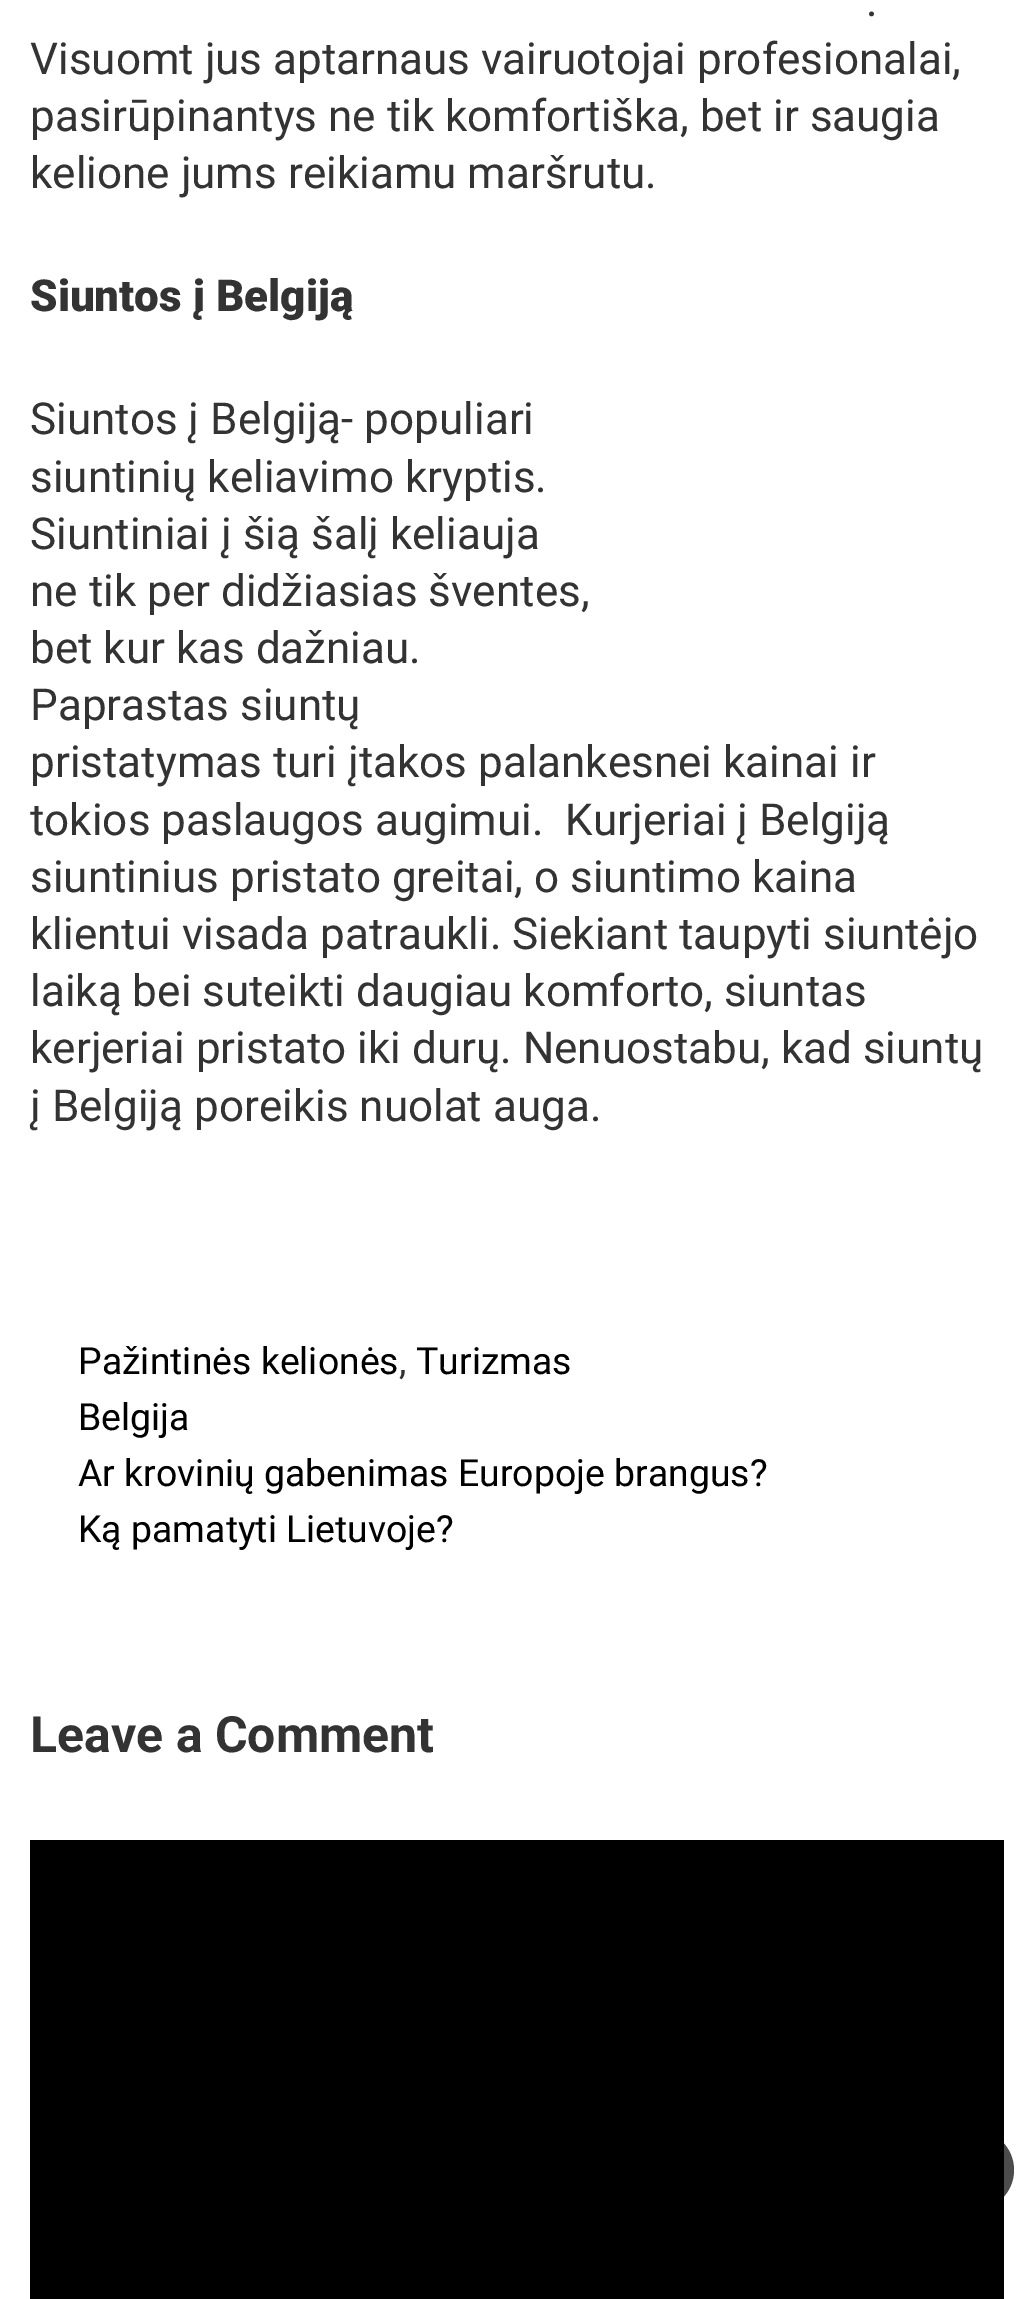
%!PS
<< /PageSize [1034 2299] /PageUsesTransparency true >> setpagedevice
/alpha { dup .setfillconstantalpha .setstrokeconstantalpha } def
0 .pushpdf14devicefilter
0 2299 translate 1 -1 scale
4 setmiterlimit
1 setgray
0 0 1034 2299 rectfill
/Roboto-Regular [44 0 0 -44 0 0] selectfont
0.2 setgray
866 16 moveto (.) show
30 74 moveto (Visuomt jus aptarnaus vairuotojai profesionalai,) show
30 131 moveto (pasirūpinantys ne tik komfortiška, bet ir saugia) show
30 188 moveto (kelione jums reikiamu maršrutu.) show
/Roboto-Black [44 0 0 -44 0 0] selectfont
30 311 moveto (Siuntos į Belgiją) show
/Roboto-Regular [44 0 0 -44 0 0] selectfont
30 434 moveto (Siuntos į Belgiją- populiari) show
30 492 moveto (siuntinių keliavimo kryptis.) show
30 549 moveto (Siuntiniai į šią šalį keliauja) show
30 606 moveto (ne tik per didžiasias šventes,) show
30 663 moveto (bet kur kas dažniau.) show
30 720 moveto (Paprastas siuntų) show
30 777 moveto (pristatymas turi įtakos palankesnei kainai ir) show
30 835 moveto (tokios paslaugos augimui.  Kurjeriai į Belgiją) show
30 892 moveto (siuntinius pristato greitai, o siuntimo kaina) show
30 949 moveto (klientui visada patraukli. Siekiant taupyti siuntėjo) show
30 1006 moveto (laiką bei suteikti daugiau komforto, siuntas) show
30 1063 moveto (kerjeriai pristato iki durų. Nenuostabu, kad siuntų) show
30 1121 moveto (į Belgiją poreikis nuolat auga.) show
/Roboto-Regular [37.4 0 0 -37.4 0 0] selectfont
0 setgray
78 1374 moveto (Pažintinės kelionės) show
0.2 setgray
399 1374 moveto (,) show
0 setgray
416 1374 moveto (Turizmas) show
78 1430 moveto (Belgija) show
78 1486 moveto (Ar krovinių gabenimas Europoje brangus?) show
78 1542 moveto (Ką pamatyti Lietuvoje?) show
/Roboto-Bold [50 0 0 -50 0 0] selectfont
0.2 setgray
30 1752 moveto (Leave a Comment) show
0 setgray
30 1840 974 459 rectfill
0.7 alpha
newpath 974 2170 40 0 360 arc closepath fill
.poppdf14devicefilter showpage
